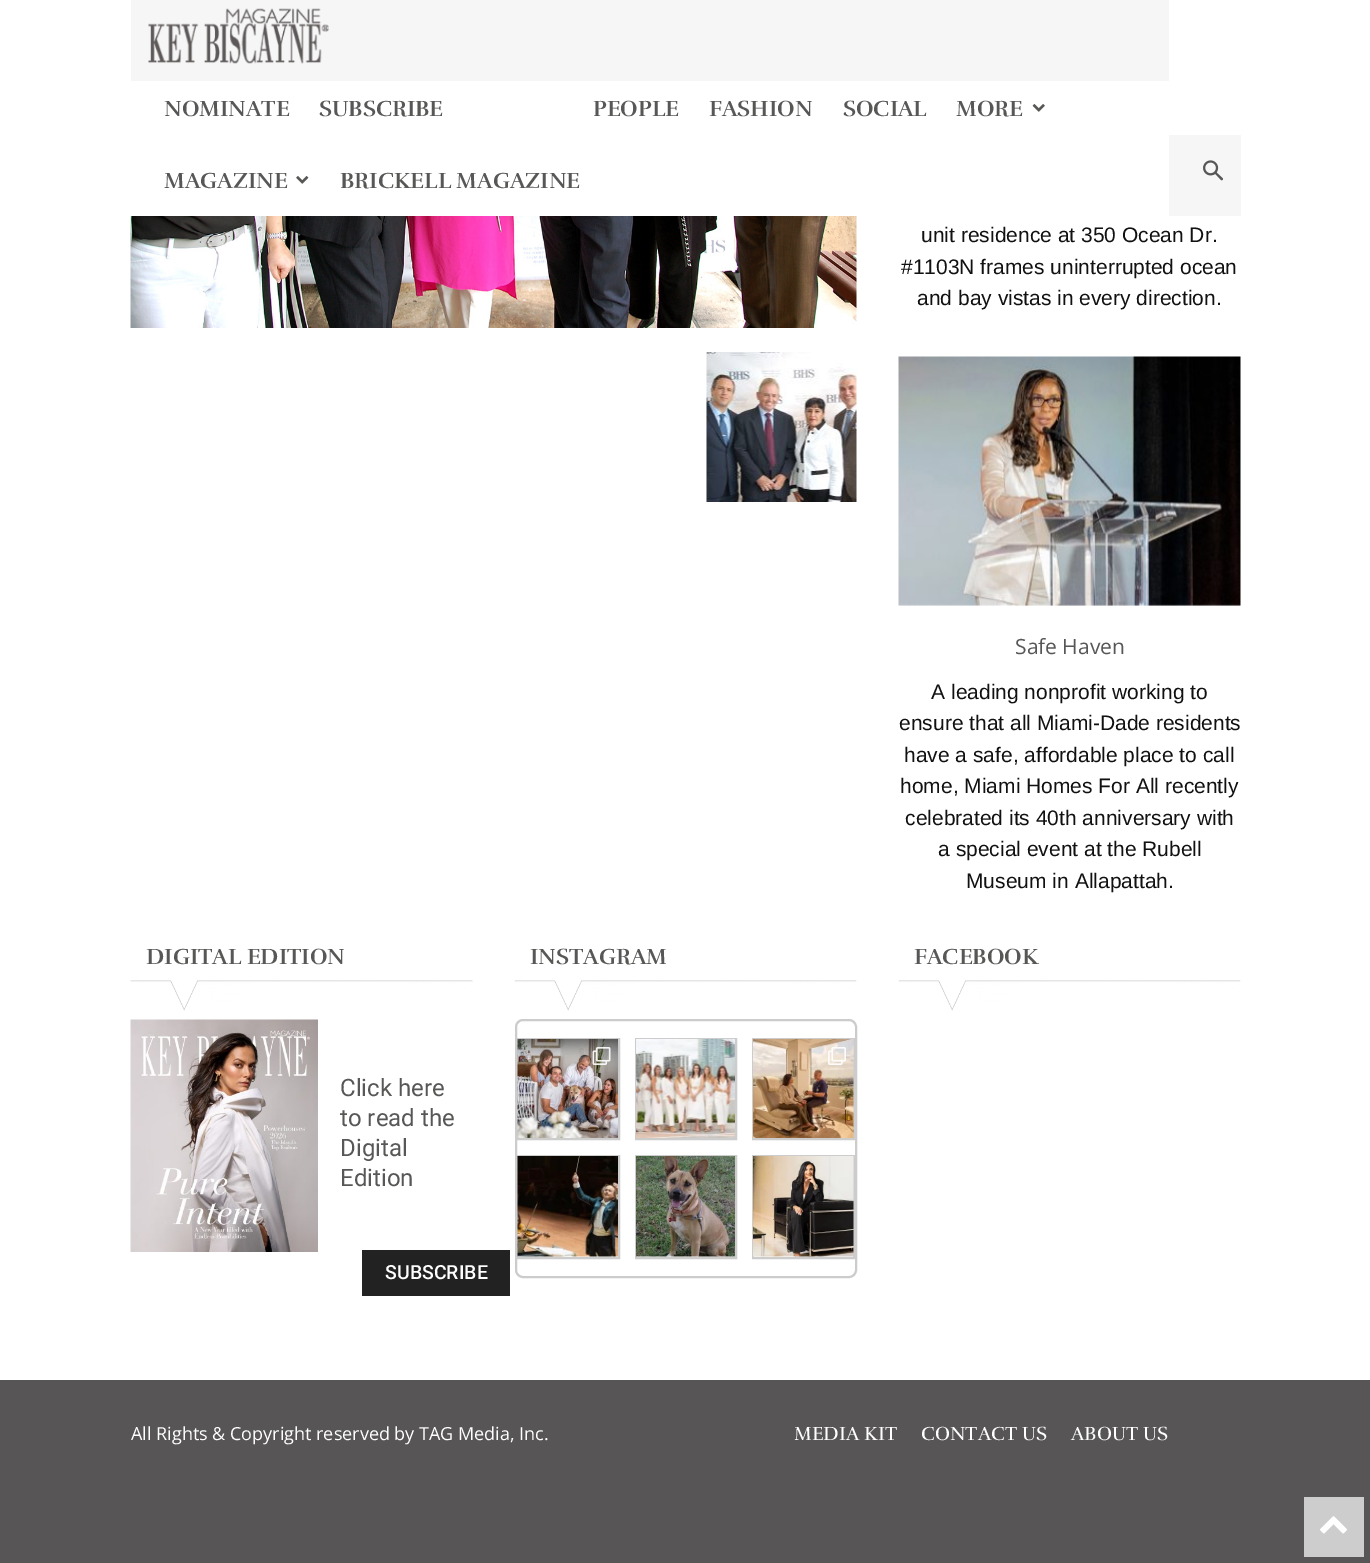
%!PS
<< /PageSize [1370 1563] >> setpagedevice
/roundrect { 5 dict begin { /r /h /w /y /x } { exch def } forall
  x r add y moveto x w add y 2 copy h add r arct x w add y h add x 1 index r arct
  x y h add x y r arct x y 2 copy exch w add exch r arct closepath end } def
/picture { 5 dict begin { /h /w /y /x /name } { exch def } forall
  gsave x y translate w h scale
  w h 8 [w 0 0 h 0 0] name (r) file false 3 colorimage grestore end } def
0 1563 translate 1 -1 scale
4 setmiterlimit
1 setgray
0 0 1370 1563 rectfill
0.965 setgray
131 0 1038 81 rectfill
(img1.rgb) 148 8 181 56 picture
/Rufina-Bold [22.5 0 0 -22.5 0 0] selectfont
0.341 0.341 0.337 setrgbcolor
164 116 moveto (NOMINATE) show
319 116 moveto (SUBSCRIBE) show
593 116 moveto (PEOPLE) show
709 116 moveto (FASHION) show
843 116 moveto (SOCIAL) show
956 116 moveto (MORE) show
(img2.rgb) 1032 104 13 8 picture
164 188 moveto (MAGAZINE) show
(img3.rgb) 296 176 13 8 picture
340 188 moveto (BRICKELL MAGAZINE) show
0.965 setgray
1169 135 72 81 rectfill
(img4.rgb) 1203 160 20 21 picture
(img5.rgb) 130 216 727 112 picture
(img6.rgb) 706 352 151 150 picture
/LiberationSans-Regular [21 0 0 -21 0 0] selectfont
0.067 setgray
921 242 moveto (unit residence at 350 Ocean Dr.) show
901 274 moveto (#1103N frames uninterrupted ocean) show
917 305 moveto (and bay vistas in every direction.) show
(img7.rgb) 898 356 343 250 picture
/OpenSans-Regular [21 0 0 -21 0 0] selectfont
0.341 0.341 0.337 setrgbcolor
1015 654 moveto (Safe Haven) show
/LiberationSans-Regular [21 0 0 -21 0 0] selectfont
0.067 setgray
931 699 moveto (A leading nonprofit working to) show
899 730 moveto (ensure that all Miami-Dade residents) show
904 762 moveto (have a safe, affordable place to call) show
900 793 moveto (home, Miami Homes For All recently) show
905 825 moveto (celebrated its 40th anniversary with) show
938 856 moveto (a special event at the Rubell) show
966 888 moveto (Museum in Allapattah.) show
/Rufina-Bold [22.5 0 0 -22.5 0 0] selectfont
0.341 0.341 0.337 setrgbcolor
146 964 moveto (DIGITAL EDITION) show
(img8.rgb) 130 980 343 31 picture
(img9.rgb) 130 1019 188 233 picture
/Roboto-Regular [24 0 0 -24 0 0] selectfont
340 1096 moveto (Click here) show
340 1126 moveto (to read the) show
340 1156 moveto (Digital) show
340 1186 moveto (Edition) show
0.133 setgray
362 1250 148 46 rectfill
/Roboto-Medium [19.5 0 0 -19.5 0 0] selectfont
1 setgray
385 1279 moveto (SUBSCRIBE) show
/Rufina-Bold [22.5 0 0 -22.5 0 0] selectfont
0.341 0.341 0.337 setrgbcolor
530 964 moveto (INSTAGRAM) show
(img10.rgb) 514 980 343 31 picture
0.8 setgray
2 setlinewidth
516 1020 340 257 7 roundrect stroke
517 1039 102 100 rectstroke
(img11.rgb) 517 1039 101 99 picture
(img12.rgb) 592 1047 19 18 picture
636 1039 100 100 rectstroke
(img13.rgb) 636 1039 99 99 picture
753 1039 101 100 rectstroke
(img14.rgb) 753 1039 101 99 picture
(img15.rgb) 828 1047 18 18 picture
517 1156 102 102 rectstroke
(img16.rgb) 517 1156 101 101 picture
636 1156 100 102 rectstroke
(img17.rgb) 636 1156 99 101 picture
753 1156 101 102 rectstroke
(img18.rgb) 753 1156 101 101 picture
0.341 0.341 0.337 setrgbcolor
914 964 moveto (FACEBOOK) show
(img10.rgb) 898 980 343 31 picture
0.341 0.333 0.337 setrgbcolor
0 1380 1370 183 rectfill
/OpenSans-Regular [18 0 0 -18 0 0] selectfont
1 setgray
131 1440 moveto (All Rights & Copyright reserved by TAG Media, Inc.) show
/Rufina-Regular [19.5 0 0 -19.5 0 0] selectfont
794 1440 moveto (MEDIA KIT) show
921 1440 moveto (CONTACT US) show
1071 1440 moveto (ABOUT US) show
0.804 setgray
1304 1497 60 60 rectfill
(img19.rgb) 1320 1516 27 18 picture
showpage
